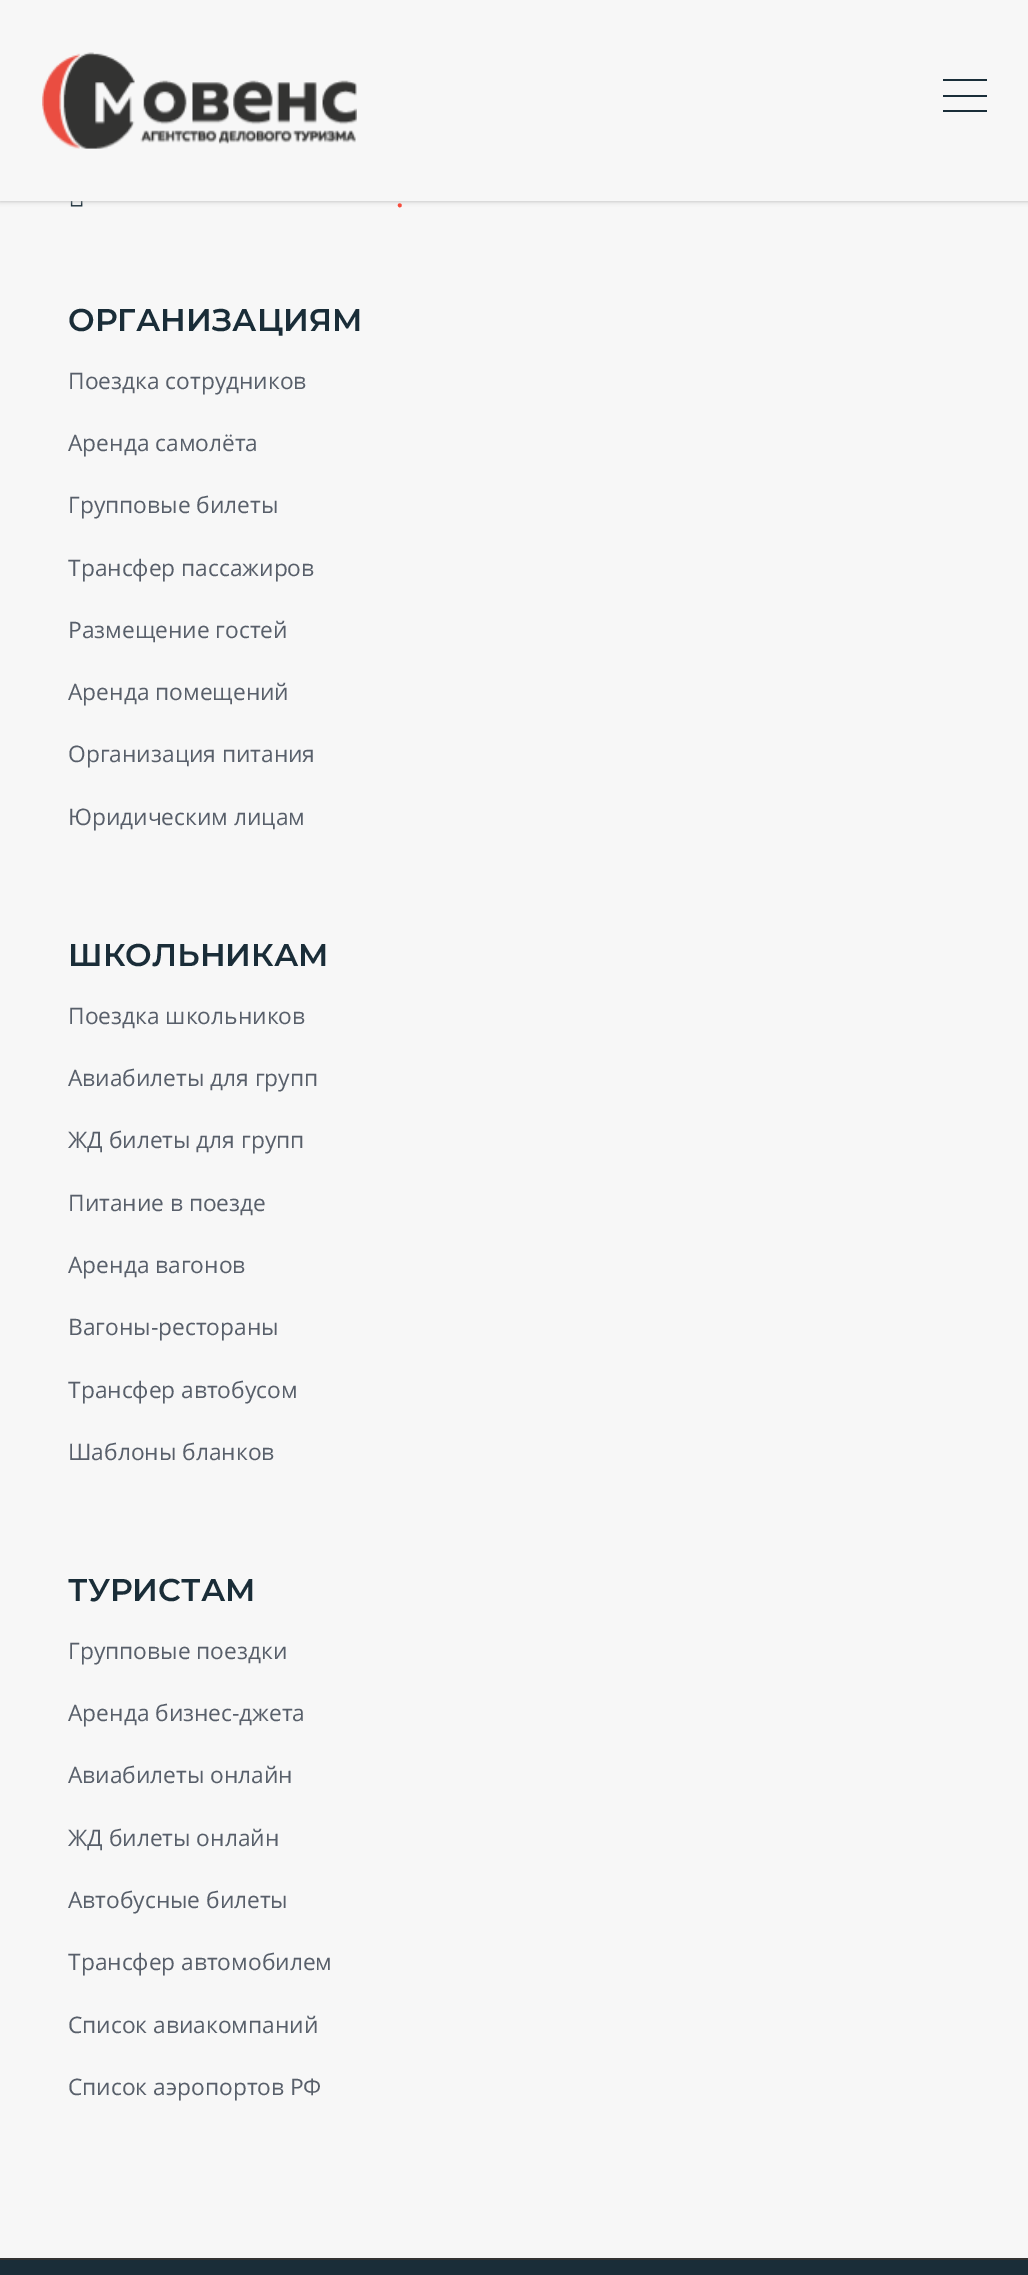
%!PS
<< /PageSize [1028 2275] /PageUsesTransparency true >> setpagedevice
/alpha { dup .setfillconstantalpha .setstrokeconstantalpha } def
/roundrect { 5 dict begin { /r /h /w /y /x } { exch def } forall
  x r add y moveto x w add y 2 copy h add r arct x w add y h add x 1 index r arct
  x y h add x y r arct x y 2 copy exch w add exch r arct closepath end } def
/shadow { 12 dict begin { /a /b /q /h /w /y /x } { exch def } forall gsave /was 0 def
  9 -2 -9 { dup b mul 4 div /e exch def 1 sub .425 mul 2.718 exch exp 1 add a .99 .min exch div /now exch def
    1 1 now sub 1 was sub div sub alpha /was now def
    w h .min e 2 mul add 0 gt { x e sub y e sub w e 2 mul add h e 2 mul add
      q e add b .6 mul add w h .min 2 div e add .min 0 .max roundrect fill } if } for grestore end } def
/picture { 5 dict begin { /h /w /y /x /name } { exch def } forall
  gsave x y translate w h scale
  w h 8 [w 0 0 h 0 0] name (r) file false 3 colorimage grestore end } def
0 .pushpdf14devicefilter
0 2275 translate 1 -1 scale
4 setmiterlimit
0.969 setgray
0 0 1028 2275 rectfill
(img2.rgb) 70 201 13 6 picture
0.71 setgray
0 0 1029 201 0 2.5 1 shadow
0.969 setgray
0 0 1028 201 rectfill
(img1.rgb) 42 52 315 97 picture
0.102 0.18 0.224 setrgbcolor
943 79 44 2 rectfill
943 95 44 2 rectfill
943 110 44 2 rectfill
/OpenSans-SemiBold [28 0 0 -28 0 0] selectfont
0.969 0.298 0.235 setrgbcolor
396 207 moveto (.) show
/Montserrat-SemiBold [31.5 0 0 -31.5 0 0] selectfont
0.102 0.176 0.22 setrgbcolor
68 331 moveto (ОРГАНИЗАЦИЯМ) show
/OpenSans-Regular [22.75 0 0 -22.75 0 0] selectfont
0.345 0.373 0.416 setrgbcolor
68 389 moveto (Поездка сотрудников) show
68 451 moveto (Аренда самолёта) show
68 513 moveto (Групповые билеты) show
68 576 moveto (Трансфер пассажиров) show
68 638 moveto (Размещение гостей) show
68 700 moveto (Аренда помещений) show
68 762 moveto (Организация питания) show
68 825 moveto (Юридическим лицам) show
/Montserrat-SemiBold [31.5 0 0 -31.5 0 0] selectfont
0.102 0.176 0.22 setrgbcolor
68 966 moveto (ШКОЛЬНИКАМ) show
/OpenSans-Regular [22.75 0 0 -22.75 0 0] selectfont
0.345 0.373 0.416 setrgbcolor
68 1024 moveto (Поездка школьников) show
68 1086 moveto (Авиабилеты для групп) show
68 1148 moveto (ЖД билеты для групп) show
68 1211 moveto (Питание в поезде) show
68 1273 moveto (Аренда вагонов) show
68 1335 moveto (Вагоны-рестораны) show
68 1398 moveto (Трансфер автобусом) show
68 1460 moveto (Шаблоны бланков) show
/Montserrat-SemiBold [31.5 0 0 -31.5 0 0] selectfont
0.102 0.176 0.22 setrgbcolor
68 1601 moveto (ТУРИСТАМ) show
/OpenSans-Regular [22.75 0 0 -22.75 0 0] selectfont
0.345 0.373 0.416 setrgbcolor
68 1659 moveto (Групповые поездки) show
68 1721 moveto (Аренда бизнес-джета) show
68 1783 moveto (Авиабилеты онлайн) show
68 1846 moveto (ЖД билеты онлайн) show
68 1908 moveto (Автобусные билеты) show
68 1970 moveto (Трансфер автомобилем) show
68 2033 moveto (Список авиакомпаний) show
68 2095 moveto (Список аэропортов РФ) show
0.102 0.176 0.22 setrgbcolor
0 2260 1028 15 rectfill
0.2 setgray
0 2258 1028 2 rectfill
.poppdf14devicefilter showpage
